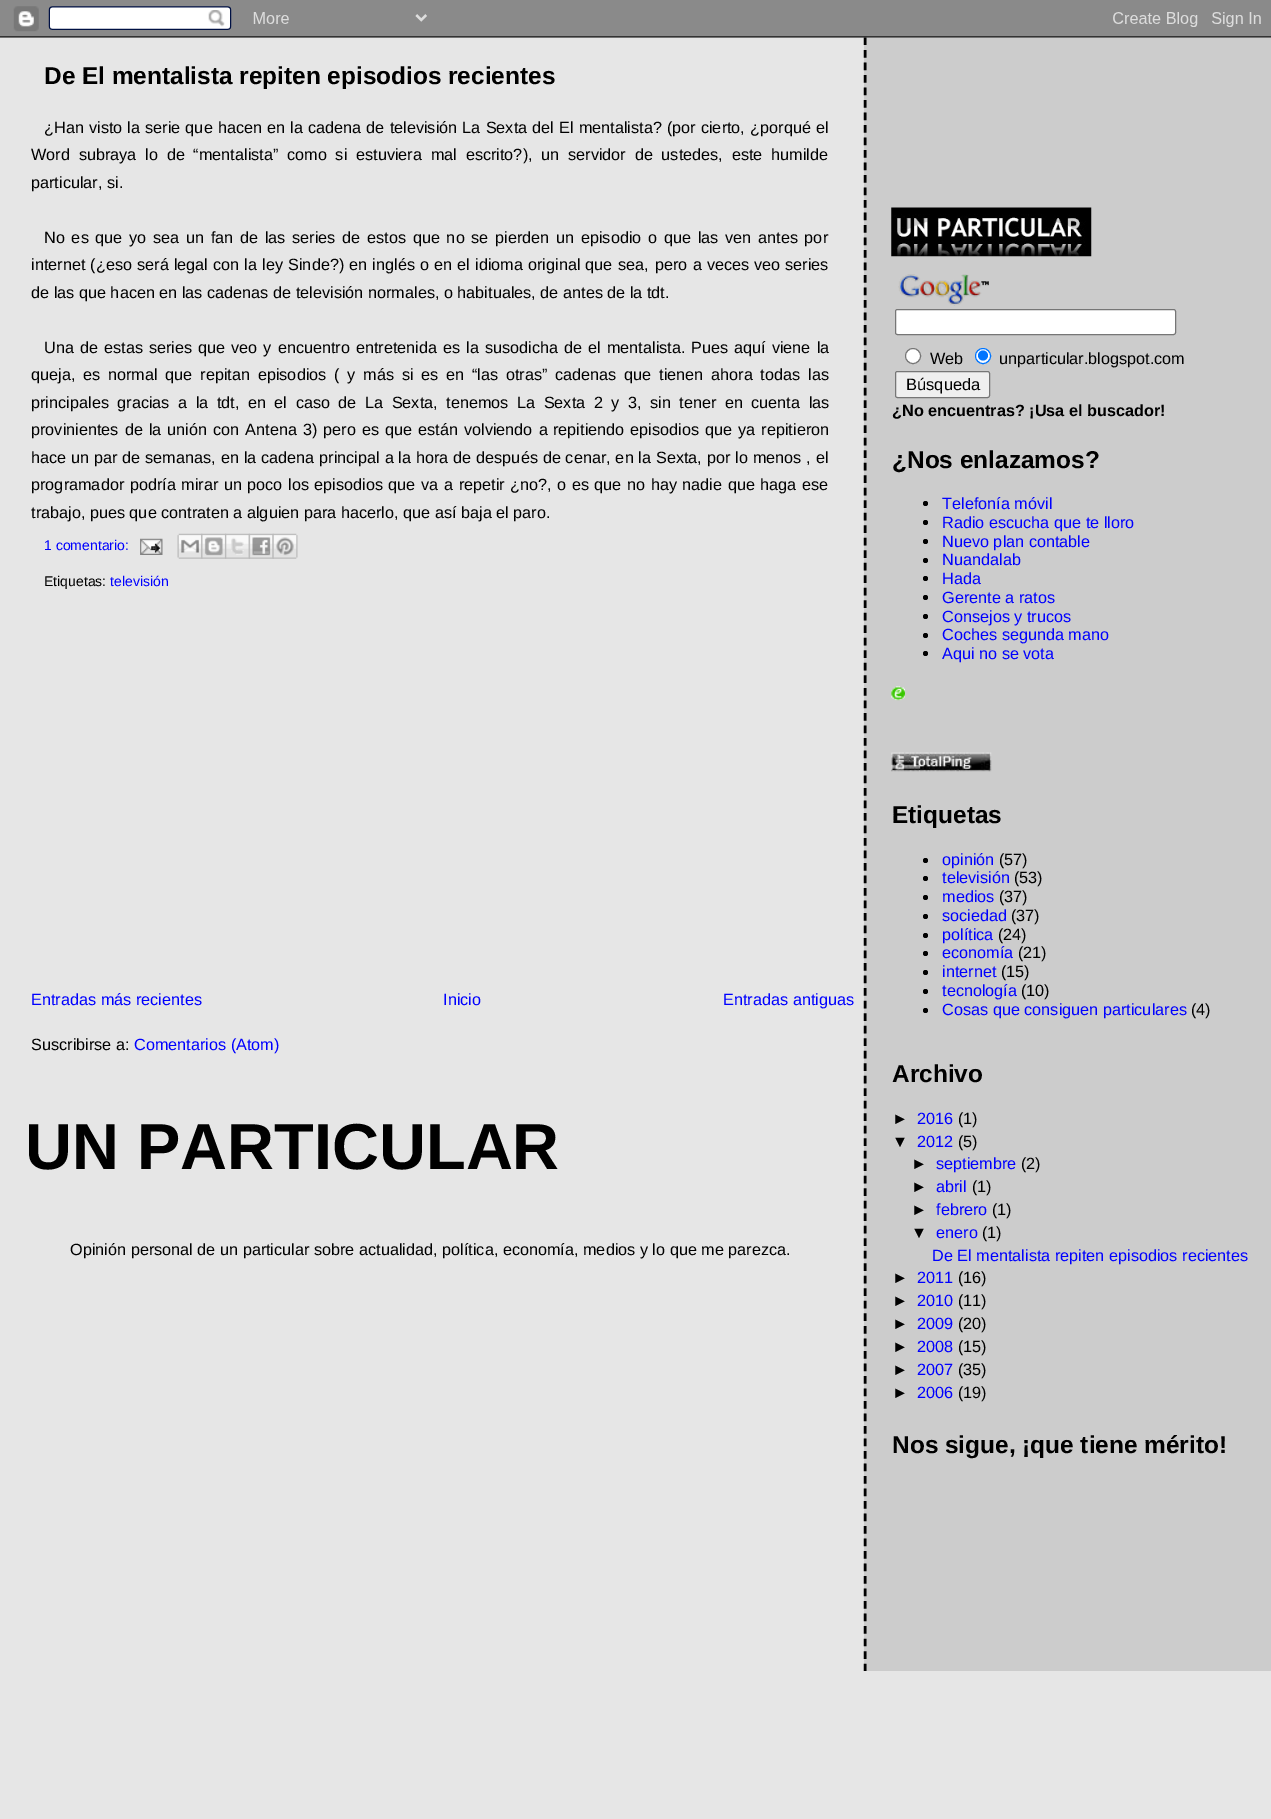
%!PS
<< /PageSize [1271 1819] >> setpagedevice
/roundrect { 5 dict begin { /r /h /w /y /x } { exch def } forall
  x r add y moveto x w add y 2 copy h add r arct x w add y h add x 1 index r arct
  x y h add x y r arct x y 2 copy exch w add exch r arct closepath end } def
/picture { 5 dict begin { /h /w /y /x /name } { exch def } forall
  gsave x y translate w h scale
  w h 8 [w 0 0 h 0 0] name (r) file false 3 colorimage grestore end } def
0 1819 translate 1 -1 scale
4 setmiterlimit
0.902 setgray
0 0 1271 1819 rectfill
(img1.rgb) 0 0 1271 38 picture
/LiberationSans-Bold [24.4 0 0 -24.4 0 0] selectfont
0 setgray
44 84 moveto (De El mentalista repiten episodios recientes) show
/LiberationSans-Regular [16.25 0 0 -16.25 0 0] selectfont
44 133 moveto 0.6 0 32 (¿Han visto la serie que hacen en la cadena de televisión La Sexta del El mentalista? \(por cierto, ¿porqué el) widthshow
31 160 moveto 4.25 0 32 (Word subraya lo de “mentalista” como si estuviera mal escrito?\), un servidor de ustedes, este humilde) widthshow
31 188 moveto (particular, si.) show
44 243 moveto 2.2 0 32 (No es que yo sea un fan de las series de estos que no se pierden un episodio o que las ven antes por) widthshow
31 270 moveto 0.6 0 32 (internet \(¿eso será legal con la ley Sinde?\) en inglés o en el idioma original que sea,) widthshow
655 270 moveto 0.5 0 32 (pero a veces veo series) widthshow
31 298 moveto (de las que hacen en las cadenas de televisión normales, o habituales, de antes de la tdt.) show
44 353 moveto 1.5 0 32 (Una de estas series que veo y encuentro entretenida es la susodicha de el mentalista.) widthshow
691 353 moveto 1.5 0 32 (Pues aquí viene la) widthshow
31 380 moveto 3.25 0 32 (queja, es normal que repitan episodios \( y más si es en “las otras” cadenas que tienen ahora todas las) widthshow
31 408 moveto 4 0 32 (principales gracias a la tdt, en el caso de La Sexta, tenemos La Sexta 2 y 3, sin tener en cuenta las) widthshow
31 435 moveto 1.5 0 32 (provinientes de la unión con Antena 3\) pero es que están volviendo a) widthshow
553 435 moveto 1.5 0 32 (repitiendo episodios que ya repitieron) widthshow
31 463 moveto 0.35 0 32 (hace un par de semanas, en la cadena principal a la hora de después de cenar, en la Sexta, por lo menos , el) widthshow
31 490 moveto 1 0 32 (programador podría mirar un poco los episodios que va) widthshow
444 490 moveto 1 0 32 (a repetir ¿no?, o es que no hay nadie que haga ese) widthshow
31 518 moveto (trabajo, pues que contraten a alguien para hacerlo, que así baja el paro.) show
/LiberationSans-Regular [14 0 0 -14 0 0] selectfont
0 0 1 setrgbcolor
44 550 moveto (1 comentario:) show
(img2.rgb) 140 538 23 17 picture
(img3.rgb) 177 533 26 26 picture
(img4.rgb) 201 533 26 26 picture
(img5.rgb) 225 533 25 26 picture
(img6.rgb) 248 533 26 26 picture
(img7.rgb) 272 533 26 26 picture
0 setgray
44 586 moveto (Etiquetas:) show
0 0 1 setrgbcolor
110 586 moveto (televisión) show
/LiberationSans-Regular [16.25 0 0 -16.25 0 0] selectfont
31 1005 moveto (Entradas más recientes) show
443 1005 moveto (Inicio) show
723 1005 moveto (Entradas antiguas) show
0 setgray
31 1050 moveto (Suscribirse a:) show
0 0 1 setrgbcolor
134 1050 moveto (Comentarios \(Atom\)) show
/LiberationSans-Bold [65 0 0 -65 0 0] selectfont
0 setgray
25 1169 moveto (UN PARTICULAR) show
/LiberationSans-Regular [16.25 0 0 -16.25 0 0] selectfont
70 1255 moveto (Opinión personal de un particular sobre actualidad, política, economía, medios y lo que me parezca.) show
0.8 setgray
864 38 407 1633 rectfill
0 setgray
2.5 setlinewidth
[7.5 5.01] 0 setdash
newpath 865 37.5 moveto 865 1671 lineto stroke
(img8.rgb) 891 207 201 50 picture
(img9.rgb) 898 274 91 32 picture
1 setgray
895.5 309.5 280 25 2 roundrect gsave fill grestore
0.463 setgray
1 setlinewidth
[] 0 setdash
stroke
1 setgray
newpath 913 356 7.5 0 360 arc closepath gsave fill grestore
0.463 setgray
stroke
0 setgray
930 364 moveto (Web) show
1 setgray
newpath 983 356 7.5 0 360 arc closepath gsave fill grestore
0 0.459 1 setrgbcolor
stroke
newpath 983 355.5 5 0 360 arc closepath fill
0 setgray
999 364 moveto (unparticular.blogspot.com) show
0.937 setgray
895.5 371.5 94 26 2 roundrect gsave fill grestore
0.463 setgray
stroke
/LiberationSans-Regular [16.5 0 0 -16.5 0 0] selectfont
0 setgray
906 390 moveto (Búsqueda) show
/LiberationSans-Bold [16.25 0 0 -16.25 0 0] selectfont
892 416 moveto (¿No encuentras? ¡Usa el buscador!) show
/LiberationSans-Bold [24.4 0 0 -24.4 0 0] selectfont
892 468 moveto (¿Nos enlazamos?) show
newpath 925.5 503.5 2.5 0 360 arc closepath fill
/LiberationSans-Regular [16.25 0 0 -16.25 0 0] selectfont
0 0 1 setrgbcolor
942 509 moveto (Telefonía móvil) show
0 setgray
newpath 925.5 522.5 2.5 0 360 arc closepath fill
0 0 1 setrgbcolor
942 528 moveto (Radio escucha que te lloro) show
0 setgray
newpath 925.5 541.5 2.5 0 360 arc closepath fill
0 0 1 setrgbcolor
942 547 moveto (Nuevo plan contable) show
0 setgray
newpath 925.5 560.5 2.5 0 360 arc closepath fill
0 0 1 setrgbcolor
942 565 moveto (Nuandalab) show
0 setgray
newpath 925.5 578.5 2.5 0 360 arc closepath fill
0 0 1 setrgbcolor
942 584 moveto (Hada) show
0 setgray
newpath 925.5 597.5 2.5 0 360 arc closepath fill
0 0 1 setrgbcolor
942 603 moveto (Gerente a ratos) show
0 setgray
newpath 925.5 616.5 2.5 0 360 arc closepath fill
0 0 1 setrgbcolor
942 622 moveto (Consejos y trucos) show
0 setgray
newpath 925.5 635.5 2.5 0 360 arc closepath fill
0 0 1 setrgbcolor
942 640 moveto (Coches segunda mano) show
0 setgray
newpath 925.5 653.5 2.5 0 360 arc closepath fill
0 0 1 setrgbcolor
942 659 moveto (Aqui no se vota) show
(img10.rgb) 891 686 14 15 picture
(img11.rgb) 891 752 101 20 picture
/LiberationSans-Bold [24.4 0 0 -24.4 0 0] selectfont
0 setgray
892 823 moveto (Etiquetas) show
newpath 925.5 860.5 2.5 0 360 arc closepath fill
/LiberationSans-Regular [16.25 0 0 -16.25 0 0] selectfont
0 0 1 setrgbcolor
942 865 moveto (opinión) show
0 setgray
999 865 moveto (\(57\)) show
newpath 925.5 878.5 2.5 0 360 arc closepath fill
0 0 1 setrgbcolor
942 883 moveto (televisión) show
0 setgray
1014 883 moveto (\(53\)) show
newpath 925.5 897.5 2.5 0 360 arc closepath fill
0 0 1 setrgbcolor
942 902 moveto (medios) show
0 setgray
999 902 moveto (\(37\)) show
newpath 925.5 916.5 2.5 0 360 arc closepath fill
0 0 1 setrgbcolor
942 921 moveto (sociedad) show
0 setgray
1011 921 moveto (\(37\)) show
newpath 925.5 935.5 2.5 0 360 arc closepath fill
0 0 1 setrgbcolor
942 940 moveto (política) show
0 setgray
998 940 moveto (\(24\)) show
newpath 925.5 953.5 2.5 0 360 arc closepath fill
0 0 1 setrgbcolor
942 958 moveto (economía) show
0 setgray
1018 958 moveto (\(21\)) show
newpath 925.5 972.5 2.5 0 360 arc closepath fill
0 0 1 setrgbcolor
942 977 moveto (internet) show
0 setgray
1001 977 moveto (\(15\)) show
newpath 925.5 991.5 2.5 0 360 arc closepath fill
0 0 1 setrgbcolor
942 996 moveto (tecnología) show
0 setgray
1021 996 moveto (\(10\)) show
newpath 925.5 1010.5 2.5 0 360 arc closepath fill
0 0 1 setrgbcolor
942 1015 moveto (Cosas que consiguen particulares) show
0 setgray
1191 1015 moveto (\(4\)) show
/LiberationSans-Bold [24.4 0 0 -24.4 0 0] selectfont
892 1082 moveto (Archivo) show
/LiberationSans-Regular [16.25 0 0 -16.25 0 0] selectfont
892 1124 moveto (►) show
0 0 1 setrgbcolor
917 1124 moveto (2016) show
0 setgray
958 1124 moveto (\(1\)) show
892 1147 moveto (▼) show
0 0 1 setrgbcolor
917 1147 moveto (2012) show
0 setgray
958 1147 moveto (\(5\)) show
911 1169 moveto (►) show
0 0 1 setrgbcolor
936 1169 moveto (septiembre) show
0 setgray
1021 1169 moveto (\(2\)) show
911 1192 moveto (►) show
0 0 1 setrgbcolor
936 1192 moveto (abril) show
0 setgray
972 1192 moveto (\(1\)) show
911 1215 moveto (►) show
0 0 1 setrgbcolor
936 1215 moveto (febrero) show
0 setgray
992 1215 moveto (\(1\)) show
911 1238 moveto (▼) show
0 0 1 setrgbcolor
936 1238 moveto (enero) show
0 setgray
982 1238 moveto (\(1\)) show
0 0 1 setrgbcolor
932 1261 moveto (De El mentalista repiten episodios recientes) show
0 setgray
892 1283 moveto (►) show
0 0 1 setrgbcolor
917 1283 moveto (2011) show
0 setgray
958 1283 moveto (\(16\)) show
892 1306 moveto (►) show
0 0 1 setrgbcolor
917 1306 moveto (2010) show
0 setgray
958 1306 moveto (\(11\)) show
892 1329 moveto (►) show
0 0 1 setrgbcolor
917 1329 moveto (2009) show
0 setgray
958 1329 moveto (\(20\)) show
892 1352 moveto (►) show
0 0 1 setrgbcolor
917 1352 moveto (2008) show
0 setgray
958 1352 moveto (\(15\)) show
892 1375 moveto (►) show
0 0 1 setrgbcolor
917 1375 moveto (2007) show
0 setgray
958 1375 moveto (\(35\)) show
892 1398 moveto (►) show
0 0 1 setrgbcolor
917 1398 moveto (2006) show
0 setgray
958 1398 moveto (\(19\)) show
/LiberationSans-Bold [24.4 0 0 -24.4 0 0] selectfont
892 1453 moveto (Nos sigue, ¡que tiene mérito!) show
showpage
